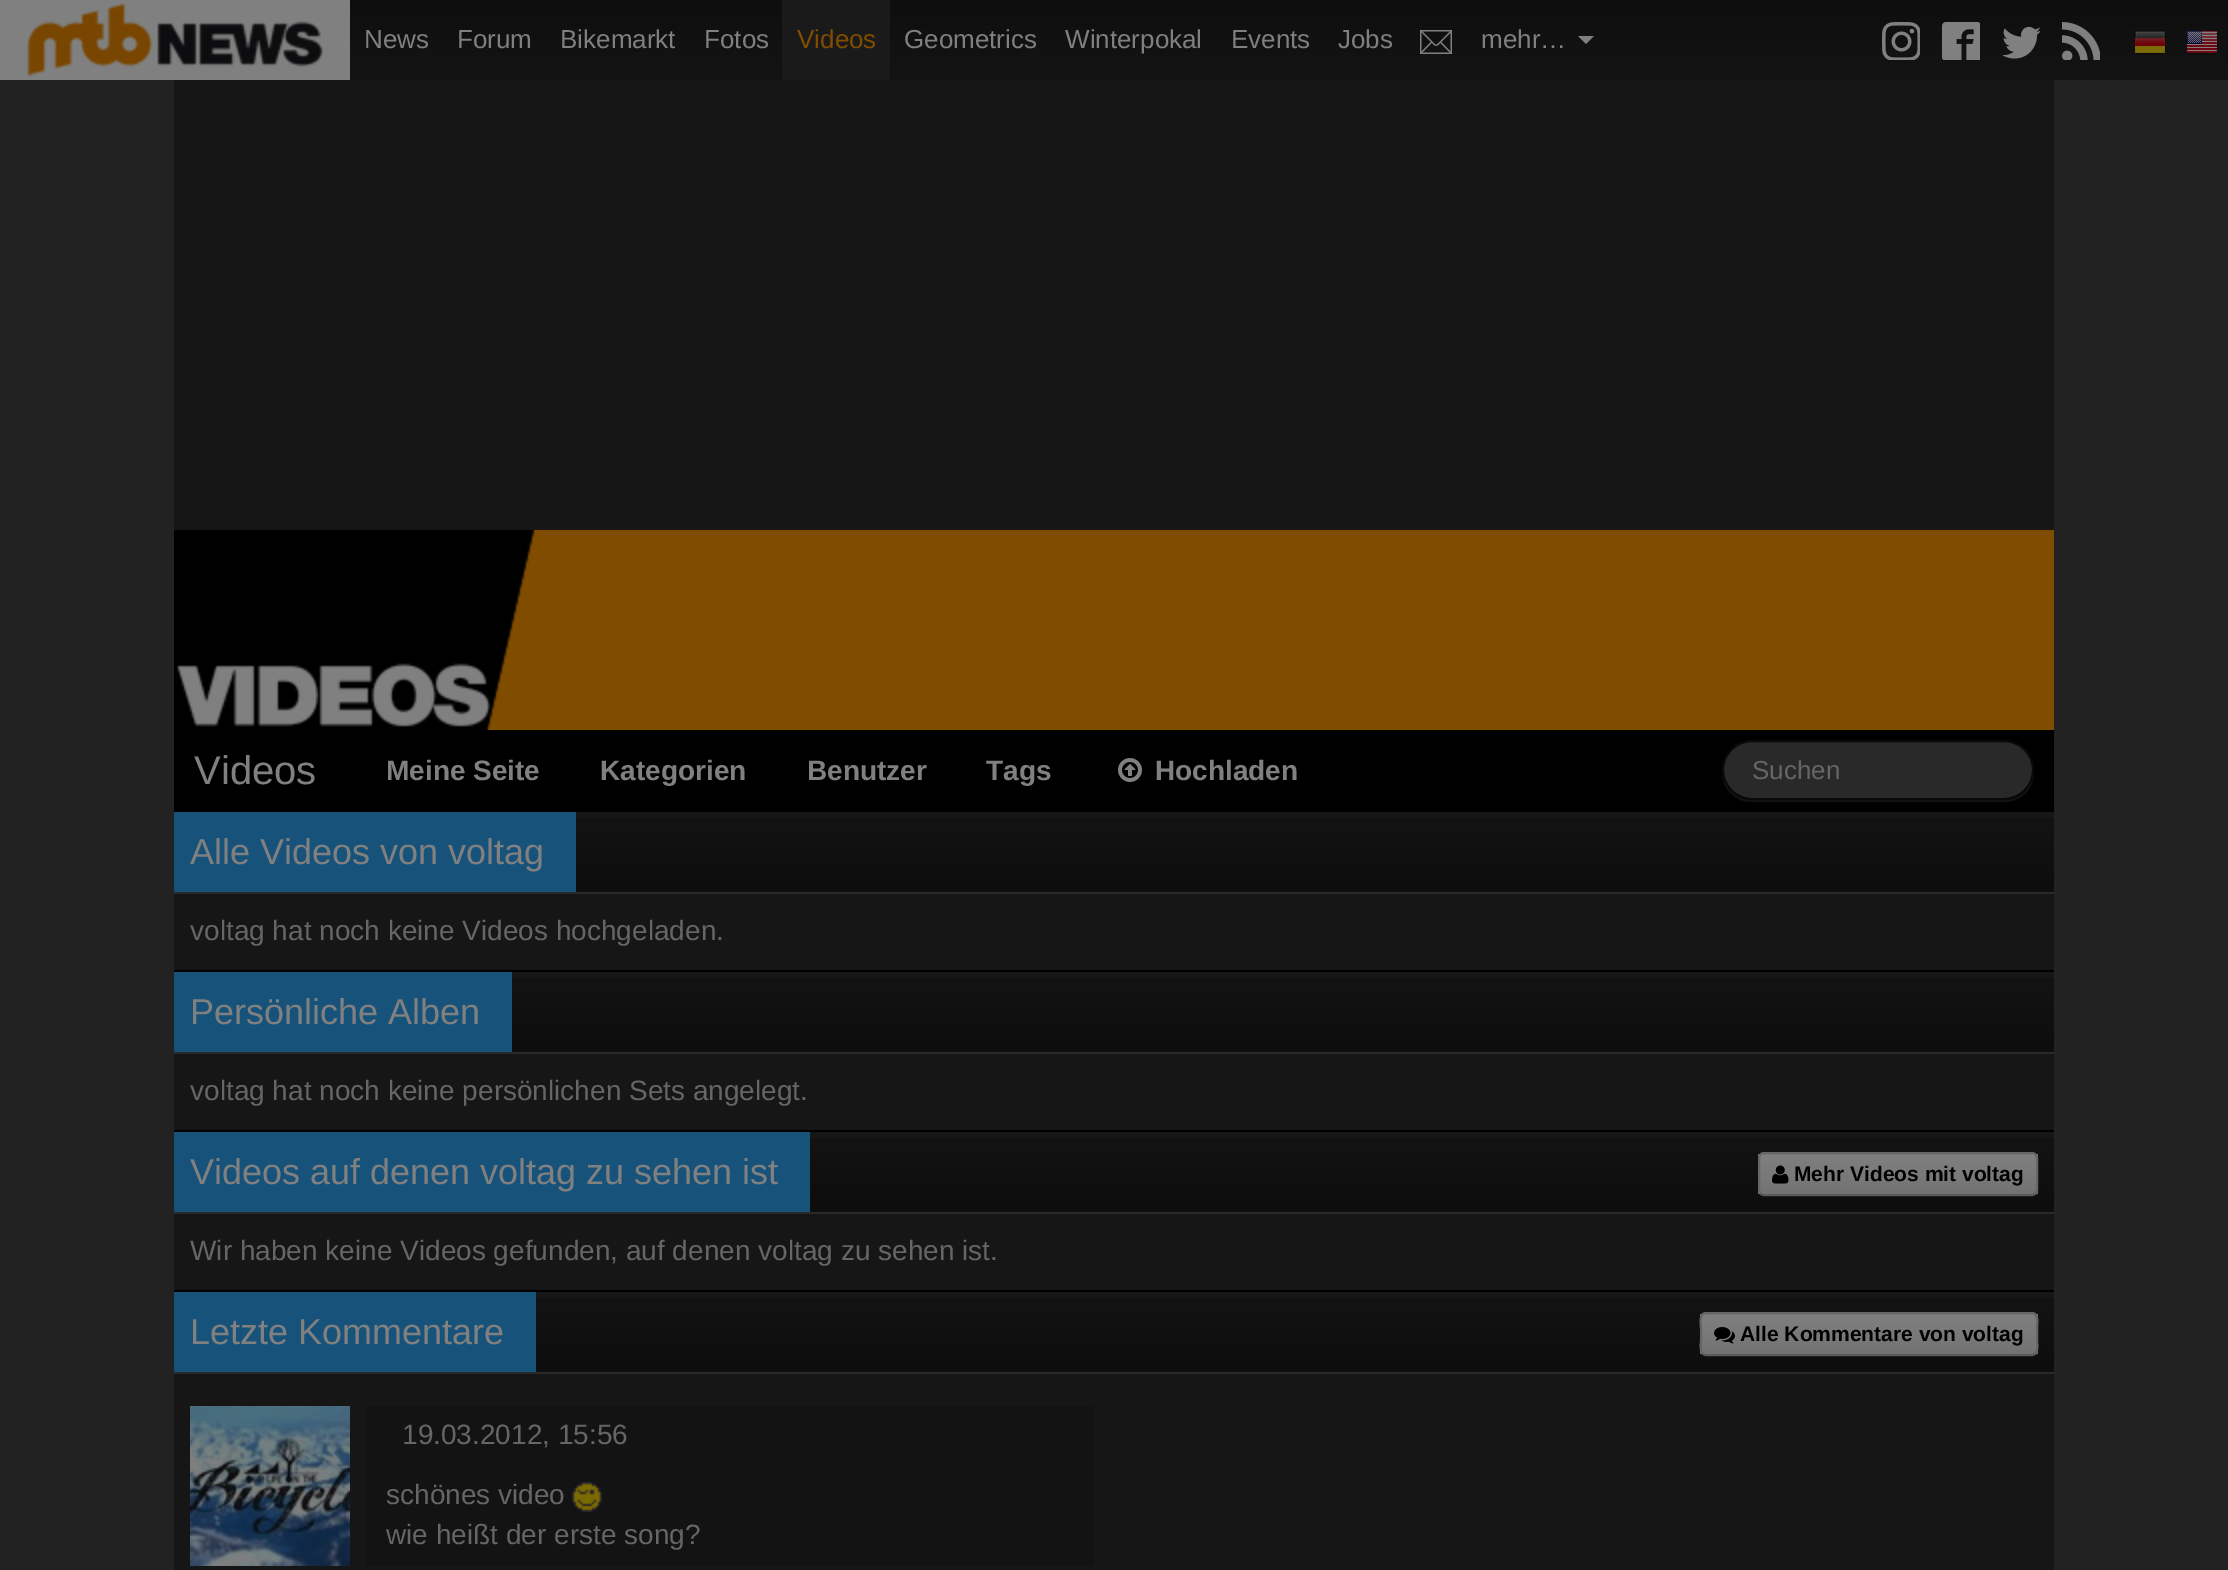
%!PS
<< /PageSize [2228 1570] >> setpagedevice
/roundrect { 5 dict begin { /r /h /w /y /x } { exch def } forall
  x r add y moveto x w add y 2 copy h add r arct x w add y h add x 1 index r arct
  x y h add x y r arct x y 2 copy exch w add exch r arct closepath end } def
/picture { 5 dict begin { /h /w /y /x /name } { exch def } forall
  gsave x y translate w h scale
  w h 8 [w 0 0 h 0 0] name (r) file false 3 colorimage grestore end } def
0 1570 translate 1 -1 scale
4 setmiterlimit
0.133 setgray
0 0 2228 1570 rectfill
gsave newpath 350 0 moveto 2228 0 lineto 2228 78 lineto 350 78 lineto closepath clip newpath
<< /ShadingType 2 /ColorSpace /DeviceRGB /Coords [1114 0 1114 80] /Extend [true true] /Function << /FunctionType 2 /Domain [0 1] /C0 [0.055 0.055 0.055] /C1 [0.078 0.078 0.078] /N 1 >> >> shfill grestore
0.071 setgray
350 78 1878 2 rectfill
0.502 setgray
0 0 350 80 rectfill
(img1.rgb) 27 3 296 74 picture
/LiberationSans-Regular [26 0 0 -26 0 0] selectfont
364 48 moveto (News) show
457 48 moveto (Forum) show
560 48 moveto (Bikemarkt) show
704 48 moveto (Fotos) show
0.102 setgray
782 0 108 80 rectfill
0.502 0.302 0 setrgbcolor
797 48 moveto (Videos) show
0.502 setgray
904 48 moveto (Geometrics) show
1065 48 moveto (Winterpokal) show
1231 48 moveto (Events) show
1338 48 moveto (Jobs) show
(img2.rgb) 1420 30 32 24 picture
1481 48 moveto (mehr…) show
newpath 1578 36 moveto 1594 36 lineto 1586 44 lineto closepath fill
(img3.rgb) 1882 22 38 38 picture
(img4.rgb) 1942 22 38 38 picture
(img5.rgb) 2002 26 38 33 picture
(img6.rgb) 2062 22 38 38 picture
(img7.rgb) 2134 31 32 23 picture
(img8.rgb) 2186 31 32 23 picture
0.086 setgray
174 80 1880 1490 rectfill
0.502 0.302 0 setrgbcolor
174 530 1880 200 rectfill
(img9.rgb) 174 530 361 200 picture
0 setgray
174 730 1880 82 rectfill
/LiberationSans-Regular [40 0 0 -40 0 0] selectfont
0.502 setgray
194 784 moveto (Videos) show
/LiberationSans-Bold [28 0 0 -28 0 0] selectfont
386 780 moveto (Meine Seite) show
600 780 moveto (Kategorien) show
807 780 moveto (Benutzer) show
986 780 moveto (Tags) show
(img10.rgb) 1118 758 24 24 picture
1155 780 moveto (Hochladen) show
0.075 setgray
newpath 1722 771 moveto 1722 772 lineto 1722 789 1735 802 1752 802 curveto 2004 802 lineto 2021 802 2034 789 2034 772 curveto 2034 771 lineto 2033 787 2020 800 2004 800 curveto 1752 800 lineto 1736 800 1723 787 1722 771 curveto closepath fill
0.161 setgray
1723 741 310 58 29 roundrect gsave fill grestore
0.035 setgray
2 setlinewidth
stroke
/LiberationSans-Regular [26 0 0 -26 0 0] selectfont
0.4 setgray
1752 779 moveto (Suchen) show
gsave newpath 576 818 moveto 2054 818 lineto 2054 892 lineto 576 892 lineto closepath clip newpath
<< /ShadingType 2 /ColorSpace /DeviceRGB /Coords [1114 812 1114 892] /Extend [true true] /Function << /FunctionType 2 /Domain [0 1] /C0 [0.078 0.078 0.078] /C1 [0.051 0.051 0.051] /N 1 >> >> shfill grestore
0.165 setgray
174 892 1880 2 rectfill
0.086 0.322 0.478 setrgbcolor
174 812 402 80 rectfill
/LiberationSans-Regular [36 0 0 -36 0 0] selectfont
0.502 setgray
190 864 moveto (Alle Videos von voltag) show
/LiberationSans-Regular [28 0 0 -28 0 0] selectfont
0.4 setgray
190 940 moveto (voltag hat noch keine Videos hochgeladen.) show
gsave newpath 512 978 moveto 2054 978 lineto 2054 1052 lineto 512 1052 lineto closepath clip newpath
<< /ShadingType 2 /ColorSpace /DeviceRGB /Coords [1114 972 1114 1052] /Extend [true true] /Function << /FunctionType 2 /Domain [0 1] /C0 [0.078 0.078 0.078] /C1 [0.051 0.051 0.051] /N 1 >> >> shfill grestore
0 setgray
174 970 1880 2 rectfill
0.165 setgray
174 1052 1880 2 rectfill
0.086 0.322 0.478 setrgbcolor
174 972 338 80 rectfill
/LiberationSans-Regular [36 0 0 -36 0 0] selectfont
0.502 setgray
190 1024 moveto (Persönliche Alben) show
/LiberationSans-Regular [28 0 0 -28 0 0] selectfont
0.4 setgray
190 1100 moveto (voltag hat noch keine persönlichen Sets angelegt.) show
gsave newpath 810 1138 moveto 2054 1138 lineto 2054 1212 lineto 810 1212 lineto closepath clip newpath
<< /ShadingType 2 /ColorSpace /DeviceRGB /Coords [1114 1132 1114 1212] /Extend [true true] /Function << /FunctionType 2 /Domain [0 1] /C0 [0.078 0.078 0.078] /C1 [0.051 0.051 0.051] /N 1 >> >> shfill grestore
0 setgray
174 1130 1880 2 rectfill
0.165 setgray
174 1212 1880 2 rectfill
0.086 0.322 0.478 setrgbcolor
174 1132 636 80 rectfill
/LiberationSans-Regular [36 0 0 -36 0 0] selectfont
0.502 setgray
190 1184 moveto (Videos auf denen voltag zu sehen ist) show
gsave
1758 1152 280 44 6 roundrect clip newpath
gsave newpath 1758 1154 moveto 2038 1154 lineto 2038 1194 lineto 1758 1194 lineto closepath clip newpath
<< /ShadingType 2 /ColorSpace /DeviceRGB /Coords [1898 1154 1898 1194] /Extend [true true] /Function << /FunctionType 2 /Domain [0 1] /C0 [0.502 0.502 0.502] /C1 [0.451 0.451 0.451] /N 1 >> >> shfill grestore
grestore
0.353 setgray
newpath 2035.5 1193.5 moveto 2034.5 1194.5 2033.5 1195 2032 1195 curveto 1764 1195 lineto 1762.5 1195 1761.5 1194.5 1760.5 1193.5 curveto stroke
0.4 setgray
newpath 1760.5 1193.5 moveto 1759.5 1192.5 1759 1191.5 1759 1190 curveto 1759 1158 lineto 1759 1156.5 1759.5 1155.5 1760.5 1154.5 curveto 1761.5 1153.5 1762.5 1153 1764 1153 curveto 2032 1153 lineto 2033.5 1153 2034.5 1153.5 2035.5 1154.5 curveto 2036.5 1155.5 2037 1156.5 2037 1158 curveto 2037 1190 lineto 2037 1191.5 2036.5 1192.5 2035.5 1193.5 curveto stroke
(img11.rgb) 1772 1165 17 19 picture
/LiberationSans-Bold [21 0 0 -21 0 0] selectfont
0 setgray
1794 1181 moveto (Mehr Videos mit voltag) show
/LiberationSans-Regular [28 0 0 -28 0 0] selectfont
0.4 setgray
190 1260 moveto (Wir haben keine Videos gefunden, auf denen voltag zu sehen ist.) show
gsave newpath 536 1298 moveto 2054 1298 lineto 2054 1372 lineto 536 1372 lineto closepath clip newpath
<< /ShadingType 2 /ColorSpace /DeviceRGB /Coords [1114 1292 1114 1372] /Extend [true true] /Function << /FunctionType 2 /Domain [0 1] /C0 [0.078 0.078 0.078] /C1 [0.051 0.051 0.051] /N 1 >> >> shfill grestore
0 setgray
174 1290 1880 2 rectfill
0.165 setgray
174 1372 1880 2 rectfill
0.086 0.322 0.478 setrgbcolor
174 1292 362 80 rectfill
/LiberationSans-Regular [36 0 0 -36 0 0] selectfont
0.502 setgray
190 1344 moveto (Letzte Kommentare) show
gsave
1700 1312 338 44 6 roundrect clip newpath
gsave newpath 1700 1314 moveto 2038 1314 lineto 2038 1354 lineto 1700 1354 lineto closepath clip newpath
<< /ShadingType 2 /ColorSpace /DeviceRGB /Coords [1869 1314 1869 1354] /Extend [true true] /Function << /FunctionType 2 /Domain [0 1] /C0 [0.502 0.502 0.502] /C1 [0.451 0.451 0.451] /N 1 >> >> shfill grestore
grestore
0.353 setgray
newpath 2035.5 1353.5 moveto 2034.5 1354.5 2033.5 1355 2032 1355 curveto 1706 1355 lineto 1704.5 1355 1703.5 1354.5 1702.5 1353.5 curveto stroke
0.4 setgray
newpath 1702.5 1353.5 moveto 1699.5 1350.5 1701 1342.5 1701 1339.5 curveto 1701 1328.5 lineto 1701 1325 1698.5 1313 1706 1313 curveto 2032 1313 lineto 2039.5 1313 2037 1325 2037 1328.5 curveto 2037 1339.5 lineto 2037 1342.5 2038.5 1350.5 2035.5 1353.5 curveto stroke
(img12.rgb) 1714 1327 21 17 picture
/LiberationSans-Bold [21 0 0 -21 0 0] selectfont
0 setgray
1740 1341 moveto (Alle Kommentare von voltag) show
(img13.rgb) 190 1406 160 160 picture
0.075 setgray
366 1406 728 160 rectfill
/LiberationSans-Regular [28 0 0 -28 0 0] selectfont
0.4 setgray
402 1444 moveto (19.03.2012, 15:56) show
386 1504 moveto (schönes video) show
(img14.rgb) 572 1482 30 30 picture
386 1544 moveto (wie heißt der erste song?) show
showpage
